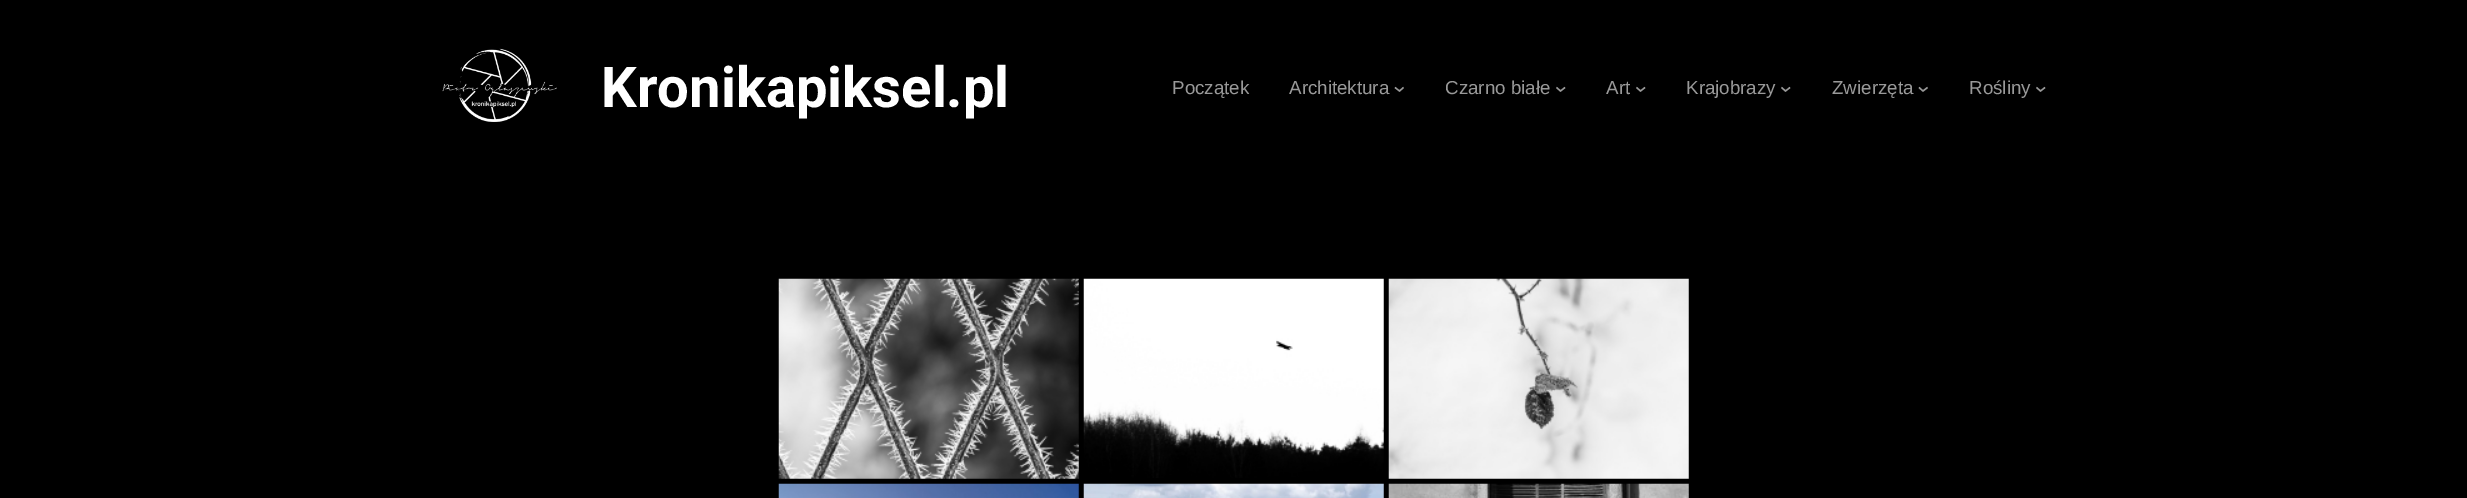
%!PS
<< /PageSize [2467 498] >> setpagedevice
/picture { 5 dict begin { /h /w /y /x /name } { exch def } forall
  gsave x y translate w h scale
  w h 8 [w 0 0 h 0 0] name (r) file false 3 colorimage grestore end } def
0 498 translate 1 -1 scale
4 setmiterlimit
0 setgray
0 0 2467 498 rectfill
(img1.rgb) 442 48 115 74 picture
/Roboto-Bold [56.25 0 0 -56.25 0 0] selectfont
1 setgray
601 107 moveto (Kronikapiksel.pl) show
/LiberationSans-Regular [18.75 0 0 -18.75 0 0] selectfont
0.6 setgray
1172 94 moveto (Początek) show
1289 94 moveto (Architektura) show
1.4 setlinewidth
newpath 1395 87.5 moveto 1399.5 91 lineto 1403.5 87.5 lineto stroke
1445 94 moveto (Czarno białe) show
newpath 1556.5 87.5 moveto 1560.5 91 lineto 1565 87.5 lineto stroke
1606 94 moveto (Art) show
newpath 1636.5 87.5 moveto 1640.5 91 lineto 1645 87.5 lineto stroke
1686 94 moveto (Krajobrazy) show
newpath 1781.5 87.5 moveto 1785.5 91 lineto 1790 87.5 lineto stroke
1832 94 moveto (Zwierzęta) show
newpath 1919 87.5 moveto 1923 91 lineto 1927.5 87.5 lineto stroke
1969 94 moveto (Rośliny) show
newpath 2036.5 87.5 moveto 2040.5 91 lineto 2045 87.5 lineto stroke
(img2.rgb) 778 278 301 201 picture
(img3.rgb) 1083 278 301 200 picture
(img4.rgb) 1388 278 301 201 picture
(img5.rgb) 778 483 301 15 picture
(img6.rgb) 1083 483 301 15 picture
(img7.rgb) 1388 483 301 15 picture
showpage
